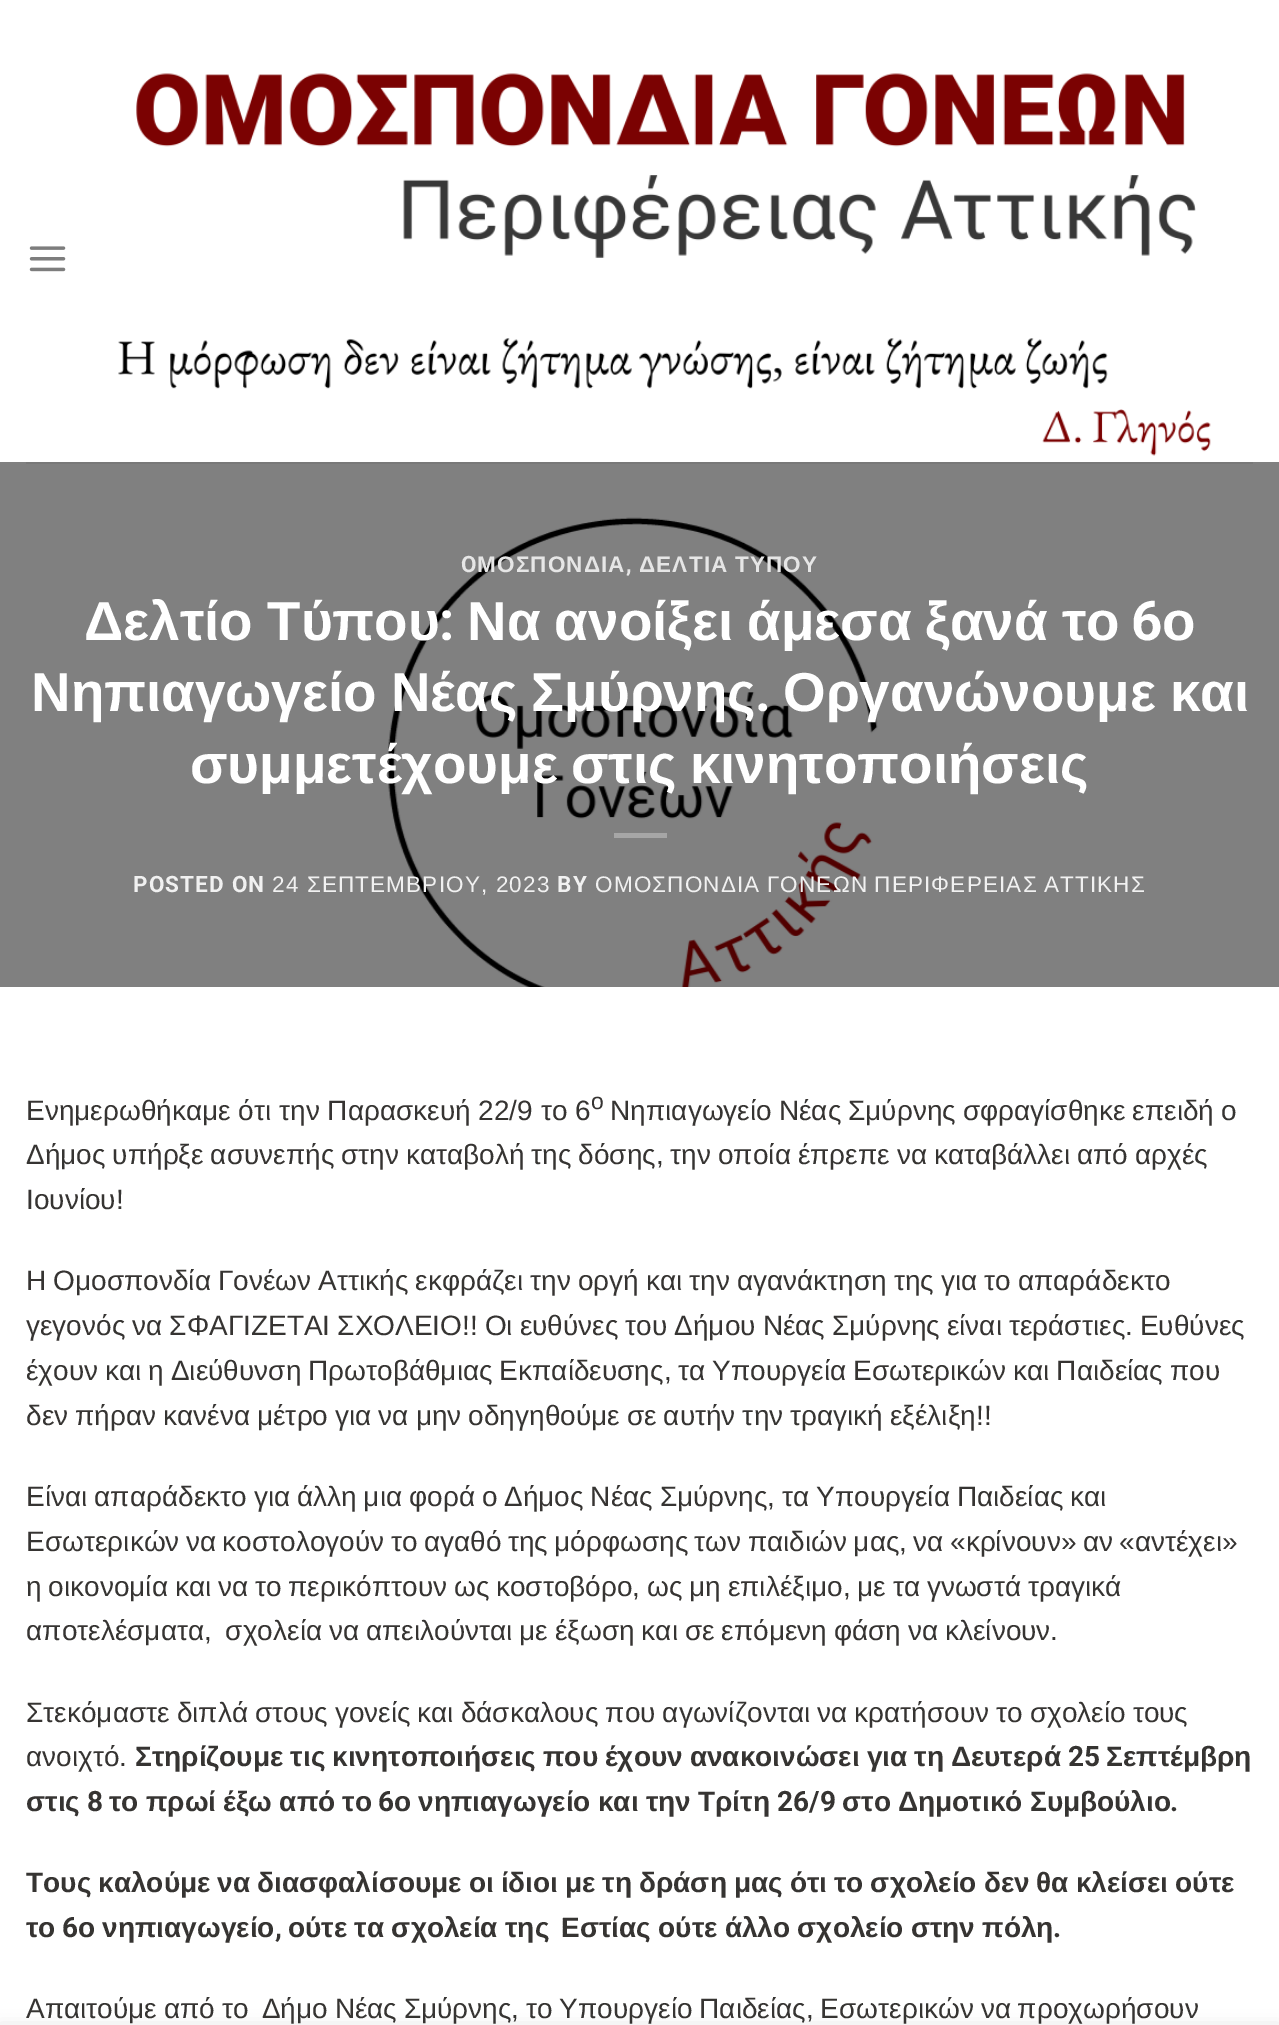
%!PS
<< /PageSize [1279 2025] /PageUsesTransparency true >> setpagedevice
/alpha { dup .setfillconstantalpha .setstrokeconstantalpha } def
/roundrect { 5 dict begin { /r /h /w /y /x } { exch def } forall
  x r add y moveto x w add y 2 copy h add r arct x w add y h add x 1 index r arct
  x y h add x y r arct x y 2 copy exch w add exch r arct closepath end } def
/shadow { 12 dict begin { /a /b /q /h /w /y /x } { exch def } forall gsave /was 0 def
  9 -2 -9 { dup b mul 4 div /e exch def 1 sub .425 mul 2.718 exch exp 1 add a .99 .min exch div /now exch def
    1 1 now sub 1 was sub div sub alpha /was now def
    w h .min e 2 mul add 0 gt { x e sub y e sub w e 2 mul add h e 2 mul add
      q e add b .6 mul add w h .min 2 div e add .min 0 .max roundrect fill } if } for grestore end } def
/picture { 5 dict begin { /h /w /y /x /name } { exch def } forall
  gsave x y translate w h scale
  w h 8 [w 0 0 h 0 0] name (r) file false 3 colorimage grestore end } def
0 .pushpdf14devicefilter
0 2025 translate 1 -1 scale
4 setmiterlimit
1 setgray
0 0 1279 2025 rectfill
(img1.rgb) 29 246 37 26 picture
(img2.rgb) 118 73 1093 383 picture
(img3.rgb) 0 462 1279 525 picture
0.471 setgray
26 462 1227 2 rectfill
/Roboto-Bold [22.5 0 0 -22.5 0 0] selectfont
0.902 setgray
461 572 moveto 1.15 0 (O) ashow
/LiberationSans-Bold [22.5 0 0 -22.5 0 0] selectfont
477 572 moveto 1.15 0 (ΜΟΣΠΟΝΔΙΑ) ashow
/Roboto-Bold [22.5 0 0 -22.5 0 0] selectfont
626 572 moveto 1.15 0 (,) ashow
/LiberationSans-Bold [22.5 0 0 -22.5 0 0] selectfont
639 572 moveto -1 0 32 1.15 0 (ΔΕΛΤΙΑ ΤΥΠΟΥ) awidthshow
/LiberationSans-Bold [54.75 0 0 -54.75 0 0] selectfont
1 setgray
84 640 moveto -1 0 32 (Δελτίο Τύπου) widthshow
/Roboto-Bold [54.75 0 0 -54.75 0 0] selectfont
439 640 moveto (:) show
/LiberationSans-Bold [54.75 0 0 -54.75 0 0] selectfont
467 640 moveto -1 0 32 (Να ανοίξει άμεσα ξανά το) widthshow
/Roboto-Bold [54.75 0 0 -54.75 0 0] selectfont
1131 640 moveto (6) show
/LiberationSans-Bold [54.75 0 0 -54.75 0 0] selectfont
1162 640 moveto (ο) show
31 711 moveto -1 0 32 (Νηπιαγωγείο Νέας Σμύρνης) widthshow
/Roboto-Bold [54.75 0 0 -54.75 0 0] selectfont
755 711 moveto (.) show
/LiberationSans-Bold [54.75 0 0 -54.75 0 0] selectfont
783 711 moveto -1 0 32 (Οργανώνουμε και) widthshow
190 783 moveto -2 0 32 (συμμετέχουμε στις κινητοποιήσεις) widthshow
0.651 setgray
614 833 53 5 rectfill
/Roboto-Bold [22.5 0 0 -22.5 0 0] selectfont
0.945 setgray
133 892 moveto 1.15 0 (POSTED ON) ashow
/LiberationSans-Regular [22.5 0 0 -22.5 0 0] selectfont
272 892 moveto 1.15 0 (24 ΣΕΠΤΕΜΒΡΙΟΥ, 2023) ashow
/Roboto-Bold [22.5 0 0 -22.5 0 0] selectfont
557 892 moveto 1.15 0 (BY) ashow
/LiberationSans-Regular [22.5 0 0 -22.5 0 0] selectfont
595 892 moveto -1 0 32 1.15 0 (ΟΜΟΣΠΟΝΔΙΑ ΓΟΝΕΩΝ ΠΕΡΙΦΕΡΕΙΑΣ ΑΤΤΙΚΗΣ) awidthshow
/LiberationSans-Regular [28 0 0 -28 0 0] selectfont
0.212 0.204 0.196 setrgbcolor
26 1120 moveto (Ενημερωθήκαμε ότι την Παρασκευή 22/9 το 6) show
/LiberationSans-Regular [23 0 0 -23 0 0] selectfont
591 1109 moveto (ο) show
/LiberationSans-Regular [28 0 0 -28 0 0] selectfont
610 1120 moveto -0.8 0 32 (Νηπιαγωγείο Νέας Σμύρνης σφραγίσθηκε επειδή ο) widthshow
26 1164 moveto -0.9 0 32 (Δήμος υπήρξε ασυνεπής στην καταβολή της δόσης, την οποία έπρεπε να καταβάλλει από αρχές) widthshow
26 1209 moveto (Ιουνίου!) show
26 1290 moveto -0.8 0 32 (Η Ομοσπονδία Γονέων Αττικής εκφράζει την οργή και την αγανάκτηση της για το απαράδεκτο) widthshow
26 1335 moveto -0.75 0 32 (γεγονός να ΣΦΑΓΙΖΕΤΑΙ ΣΧΟΛΕΙΟ!! Οι ευθύνες του Δήμου Νέας Σμύρνης είναι τεράστιες. Ευθύνες) widthshow
26 1380 moveto -0.9 0 32 (έχουν και η Διεύθυνση Πρωτοβάθμιας Εκπαίδευσης, τα Υπουργεία Εσωτερικών και Παιδείας που) widthshow
26 1425 moveto -0.8 0 32 (δεν πήραν κανένα μέτρο για να μην οδηγηθούμε σε αυτήν την τραγική εξέλιξη!!) widthshow
26 1506 moveto -0.9 0 32 (Είναι απαράδεκτο για άλλη μια φορά ο Δήμος Νέας Σμύρνης, τα Υπουργεία Παιδείας και) widthshow
26 1551 moveto -1.4 0 32 (Εσωτερικών να κοστολογούν το αγαθό της μόρφωσης των παιδιών μας, να «κρίνουν» αν «αντέχει») widthshow
26 1596 moveto -1 0 32 (η οικονομία και να το περικόπτουν ως κοστοβόρο, ως μη επιλέξιμο, με τα γνωστά τραγικά) widthshow
26 1640 moveto -0.9 0 32 (αποτελέσματα,  σχολεία να απειλούνται με έξωση και σε επόμενη φάση να κλείνουν.) widthshow
26 1722 moveto -0.8 0 32 (Στεκόμαστε διπλά στους γονείς και δάσκαλους που αγωνίζονται να κρατήσουν το σχολείο τους) widthshow
26 1766 moveto (ανοιχτό.) show
/LiberationSans-Bold [28 0 0 -28 0 0] selectfont
135 1766 moveto -0.75 0 32 (Στηρίζουμε τις κινητοποιήσεις που έχουν ανακοινώσει για τη Δευτερά) widthshow
/Roboto-Bold [28 0 0 -28 0 0] selectfont
1068 1766 moveto (25) show
/LiberationSans-Bold [28 0 0 -28 0 0] selectfont
1106 1766 moveto (Σεπτέμβρη) show
26 1811 moveto (στις) show
/Roboto-Bold [28 0 0 -28 0 0] selectfont
87 1811 moveto (8) show
/LiberationSans-Bold [28 0 0 -28 0 0] selectfont
109 1811 moveto -0.5 0 32 (το πρωί έξω από το) widthshow
/Roboto-Bold [28 0 0 -28 0 0] selectfont
378 1811 moveto (6) show
/LiberationSans-Bold [28 0 0 -28 0 0] selectfont
394 1811 moveto -0.5 0 32 (ο νηπιαγωγείο και την Τρίτη) widthshow
/Roboto-Bold [28 0 0 -28 0 0] selectfont
777 1811 moveto (26/9) show
/LiberationSans-Bold [28 0 0 -28 0 0] selectfont
842 1811 moveto -0.5 0 32 (στο Δημοτικό Συμβούλιο) widthshow
/Roboto-Bold [28 0 0 -28 0 0] selectfont
1170 1811 moveto (.) show
/LiberationSans-Bold [28 0 0 -28 0 0] selectfont
26 1892 moveto -0.8 0 32 (Τους καλούμε να διασφαλίσουμε οι ίδιοι με τη δράση μας ότι το σχολείο δεν θα κλείσει ούτε) widthshow
26 1937 moveto (το) show
/Roboto-Bold [28 0 0 -28 0 0] selectfont
62 1937 moveto (6) show
/LiberationSans-Bold [28 0 0 -28 0 0] selectfont
78 1937 moveto -0.5 0 32 (ο νηπιαγωγείο) widthshow
/Roboto-Bold [28 0 0 -28 0 0] selectfont
275 1937 moveto (,) show
/LiberationSans-Bold [28 0 0 -28 0 0] selectfont
288 1937 moveto -0.5 0 32 (ούτε τα σχολεία της) widthshow
561 1937 moveto -0.5 0 32 (Εστίας ούτε άλλο σχολείο στην πόλη) widthshow
/Roboto-Bold [28 0 0 -28 0 0] selectfont
1053 1937 moveto (.) show
/LiberationSans-Regular [28 0 0 -28 0 0] selectfont
26 2018 moveto -1 0 32 (Απαιτούμε από το  Δήμο Νέας Σμύρνης, το Υπουργείο Παιδείας, Εσωτερικών να προχωρήσουν) widthshow
0 setgray
0 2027 1279 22 0 8 0.14 shadow
.poppdf14devicefilter showpage
